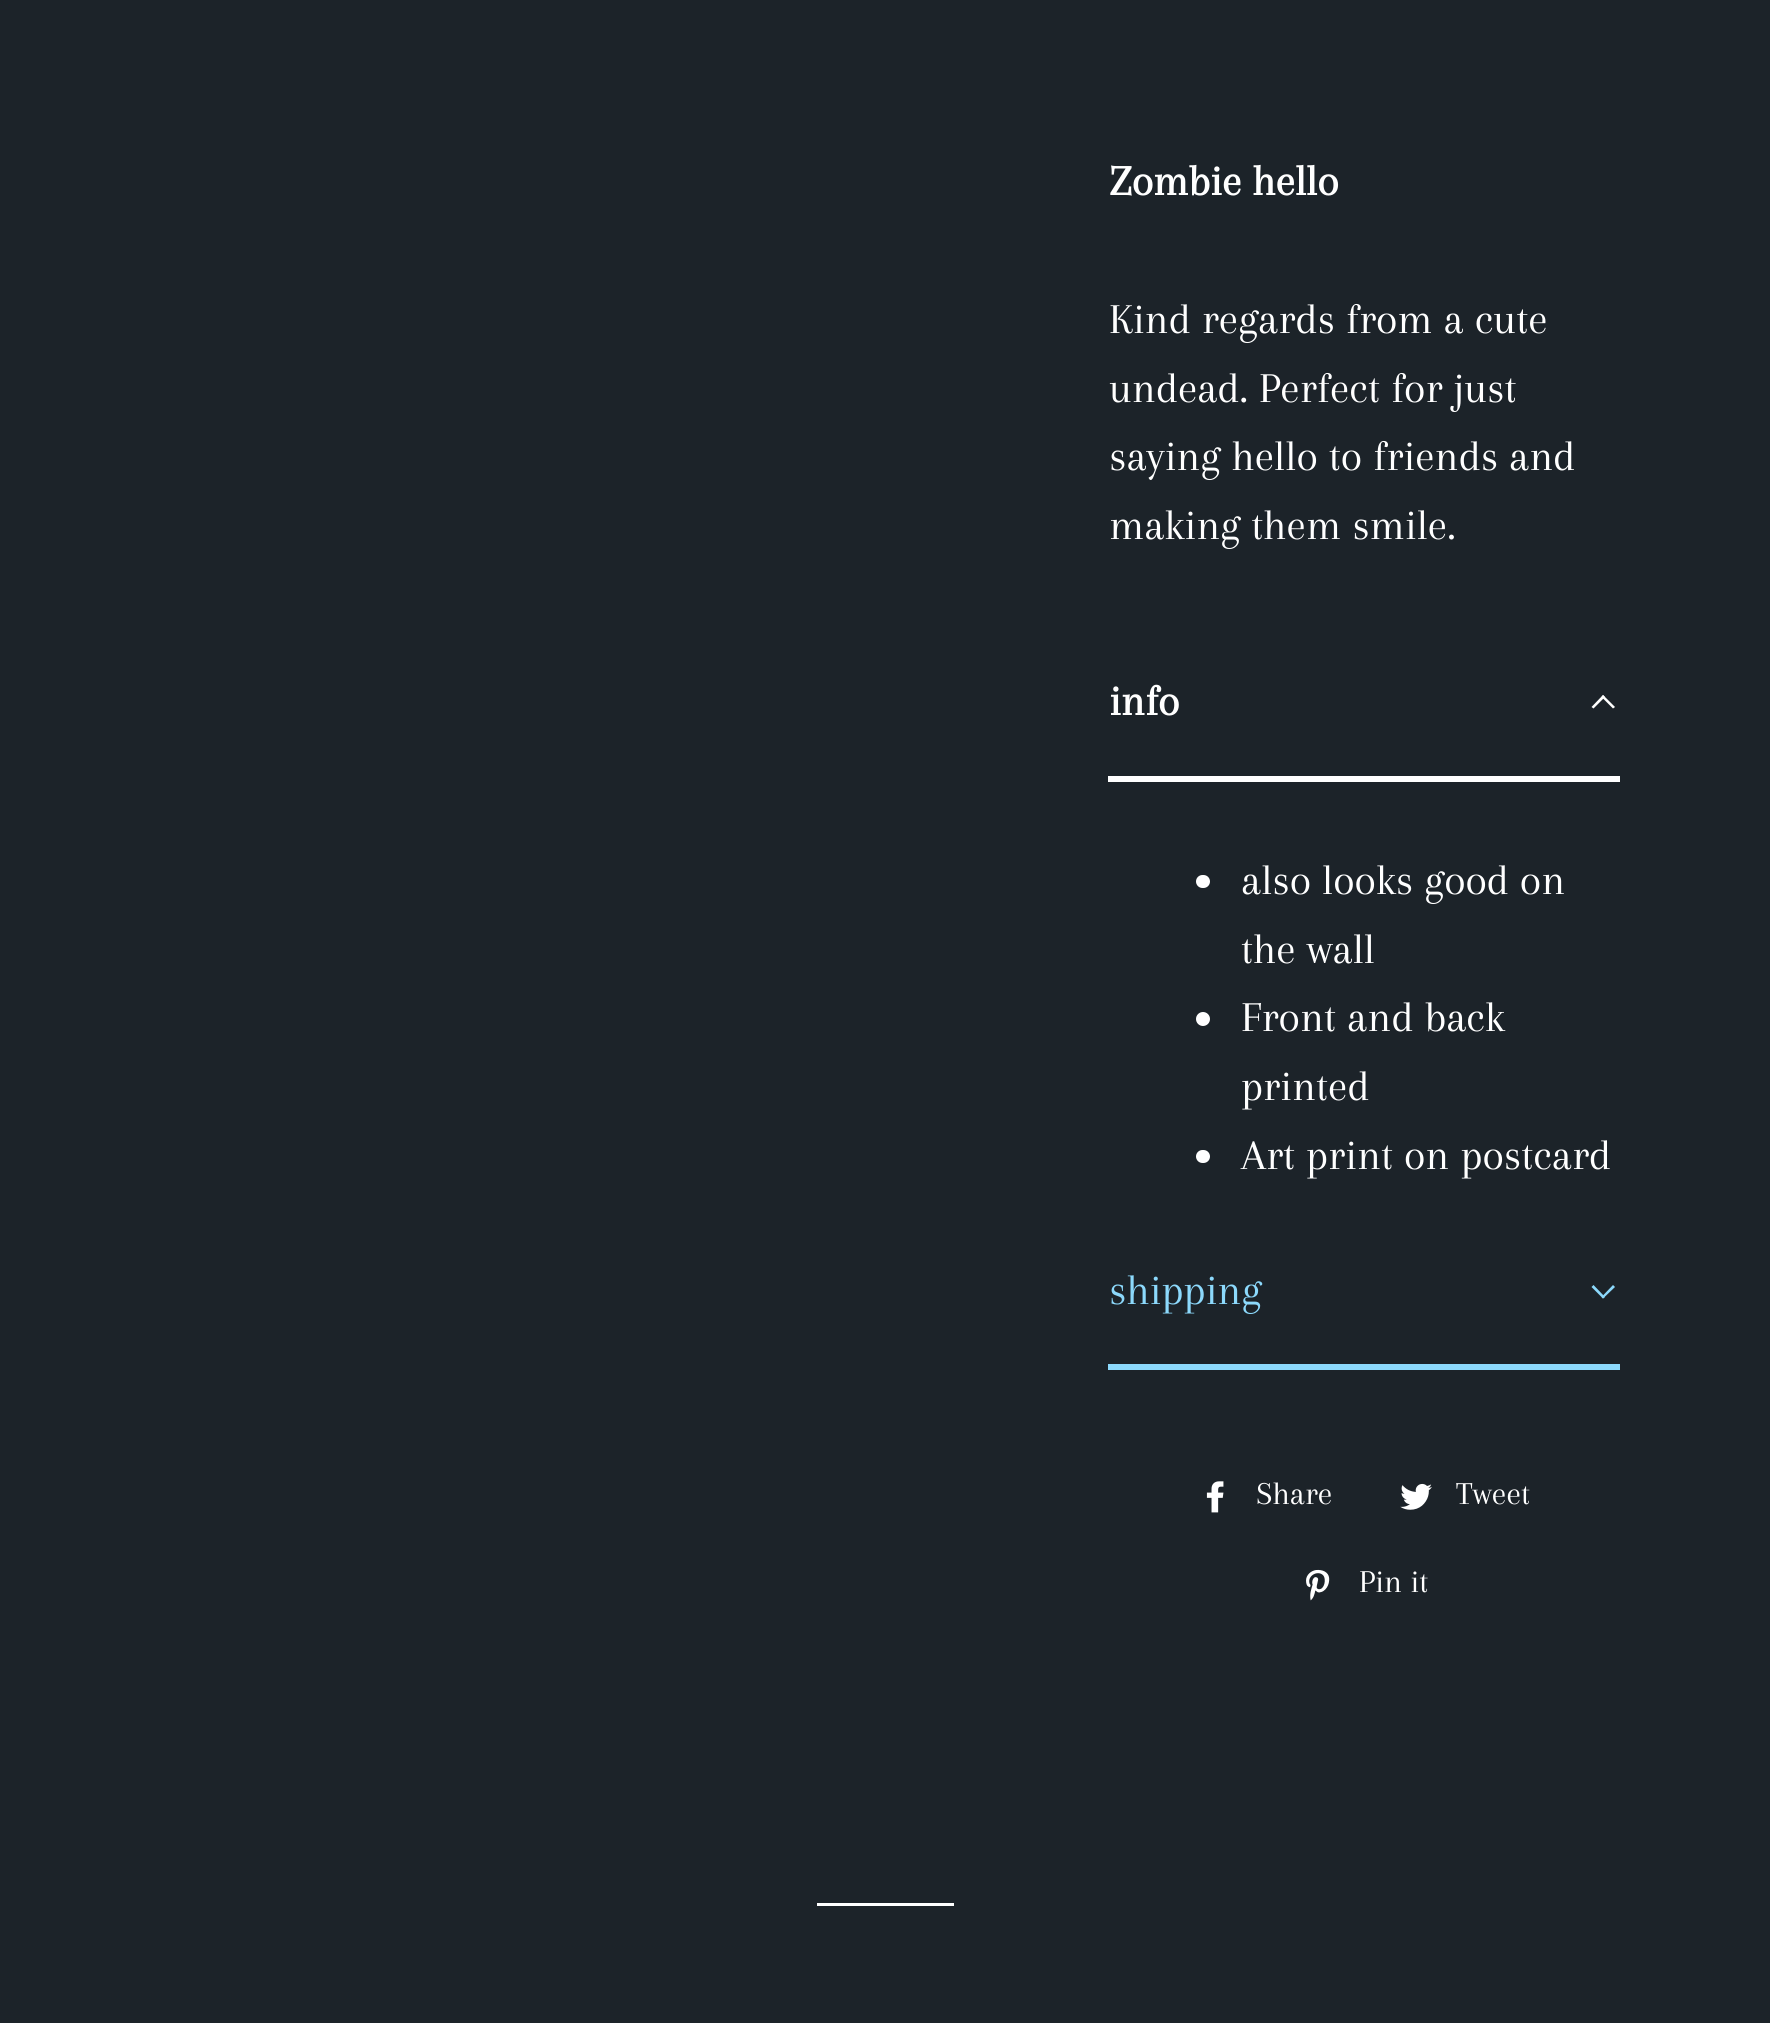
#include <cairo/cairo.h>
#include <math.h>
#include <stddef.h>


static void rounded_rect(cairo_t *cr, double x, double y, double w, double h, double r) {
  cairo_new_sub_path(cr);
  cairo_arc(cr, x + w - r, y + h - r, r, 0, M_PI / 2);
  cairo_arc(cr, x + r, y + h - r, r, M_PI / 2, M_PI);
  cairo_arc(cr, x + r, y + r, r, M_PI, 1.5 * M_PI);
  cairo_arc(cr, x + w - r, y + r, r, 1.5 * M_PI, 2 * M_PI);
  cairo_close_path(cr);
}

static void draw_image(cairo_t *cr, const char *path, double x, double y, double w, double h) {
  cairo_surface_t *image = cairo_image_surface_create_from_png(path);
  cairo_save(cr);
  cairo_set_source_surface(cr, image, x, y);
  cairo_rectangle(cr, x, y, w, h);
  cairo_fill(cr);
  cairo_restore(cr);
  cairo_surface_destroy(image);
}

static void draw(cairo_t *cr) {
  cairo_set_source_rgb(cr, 28 / 255.0, 35 / 255.0, 41 / 255.0);
  cairo_paint(cr);
  cairo_set_source_rgb(cr, 1, 1, 1);
  cairo_rectangle(cr, 1108, 776, 512, 6);
  cairo_fill(cr);
  cairo_new_path(cr);
  cairo_move_to(cr, 1593.5, 708.5);
  cairo_line_to(cr, 1591.5, 707);
  cairo_line_to(cr, 1603, 695);
  cairo_line_to(cr, 1605, 697);
  cairo_close_path(cr);
  cairo_fill(cr);
  cairo_new_path(cr);
  cairo_move_to(cr, 1613, 708.5);
  cairo_line_to(cr, 1601.5, 697);
  cairo_line_to(cr, 1603, 695);
  cairo_line_to(cr, 1615, 707);
  cairo_close_path(cr);
  cairo_fill(cr);
  rounded_rect(cr, 1196, 875, 14, 13, 6.5);
  cairo_fill(cr);
  cairo_arc(cr, 1203, 1019, 7, 0, 2 * M_PI);
  cairo_fill(cr);
  rounded_rect(cr, 1196, 1150, 14, 13, 6.5);
  cairo_fill(cr);
  cairo_set_source_rgb(cr, 140 / 255.0, 217 / 255.0, 252 / 255.0);
  cairo_rectangle(cr, 1108, 1364, 512, 6);
  cairo_fill(cr);
  cairo_new_path(cr);
  cairo_move_to(cr, 1613, 1285);
  cairo_line_to(cr, 1615, 1287);
  cairo_line_to(cr, 1603, 1298.5);
  cairo_line_to(cr, 1601.5, 1297);
  cairo_close_path(cr);
  cairo_fill(cr);
  cairo_new_path(cr);
  cairo_move_to(cr, 1593.5, 1285);
  cairo_line_to(cr, 1605, 1297);
  cairo_line_to(cr, 1603, 1298.5);
  cairo_line_to(cr, 1591.5, 1287);
  cairo_close_path(cr);
  cairo_fill(cr);
  draw_image(cr, "images/1.png", 1206, 1481, 18, 32);
  draw_image(cr, "images/2.png", 1400, 1483, 32, 27);
  draw_image(cr, "images/3.png", 1306, 1569, 24, 32);
  cairo_set_source_rgb(cr, 1, 1, 1);
  cairo_rectangle(cr, 817, 1903, 137, 3);
  cairo_fill(cr);
  cairo_select_font_face(cr, "Arapey", CAIRO_FONT_SLANT_NORMAL, CAIRO_FONT_WEIGHT_BOLD);
  cairo_set_font_size(cr, 44);
  cairo_move_to(cr, 1109, 195);
  cairo_show_text(cr, "Zombie hello");
  cairo_select_font_face(cr, "Arapey", CAIRO_FONT_SLANT_NORMAL, CAIRO_FONT_WEIGHT_NORMAL);
  cairo_move_to(cr, 1109, 333);
  cairo_show_text(cr, "Kind regards from a cute");
  cairo_move_to(cr, 1109, 402);
  cairo_show_text(cr, "undead. Perfect for just");
  cairo_move_to(cr, 1109, 470);
  cairo_show_text(cr, "saying hello to friends and");
  cairo_move_to(cr, 1109, 539);
  cairo_show_text(cr, "making them smile.");
  cairo_select_font_face(cr, "Arapey", CAIRO_FONT_SLANT_NORMAL, CAIRO_FONT_WEIGHT_BOLD);
  cairo_move_to(cr, 1109, 715);
  cairo_show_text(cr, "info");
  cairo_select_font_face(cr, "Arapey", CAIRO_FONT_SLANT_NORMAL, CAIRO_FONT_WEIGHT_NORMAL);
  cairo_move_to(cr, 1241, 894);
  cairo_show_text(cr, "also looks good on");
  cairo_move_to(cr, 1241, 963);
  cairo_show_text(cr, "the wall");
  cairo_move_to(cr, 1241, 1031);
  cairo_show_text(cr, "Front and back");
  cairo_move_to(cr, 1241, 1100);
  cairo_show_text(cr, "printed");
  cairo_move_to(cr, 1241, 1169);
  cairo_show_text(cr, "Art print on postcard");
  cairo_set_source_rgb(cr, 140 / 255.0, 217 / 255.0, 252 / 255.0);
  cairo_move_to(cr, 1109, 1304);
  cairo_show_text(cr, "shipping");
  cairo_set_font_size(cr, 33);
  cairo_set_source_rgb(cr, 1, 1, 1);
  cairo_move_to(cr, 1256, 1504);
  cairo_show_text(cr, "Share");
  cairo_move_to(cr, 1456, 1504);
  cairo_show_text(cr, "Tweet");
  cairo_move_to(cr, 1359, 1592);
  cairo_show_text(cr, "Pin it");
}

int main(void) {
  cairo_surface_t *surface = cairo_image_surface_create(CAIRO_FORMAT_RGB24, 1770, 2023);
  cairo_t *cr = cairo_create(surface);
  cairo_font_options_t *options = cairo_font_options_create();
  cairo_font_options_set_hint_metrics(options, CAIRO_HINT_METRICS_OFF);
  cairo_font_options_set_hint_style(options, CAIRO_HINT_STYLE_NONE);
  cairo_set_font_options(cr, options);
  cairo_set_miter_limit(cr, 4);
  draw(cr);
  cairo_surface_write_to_png(surface, "out.png");
  cairo_font_options_destroy(options);
  cairo_destroy(cr);
  cairo_surface_destroy(surface);
  return 0;
}
